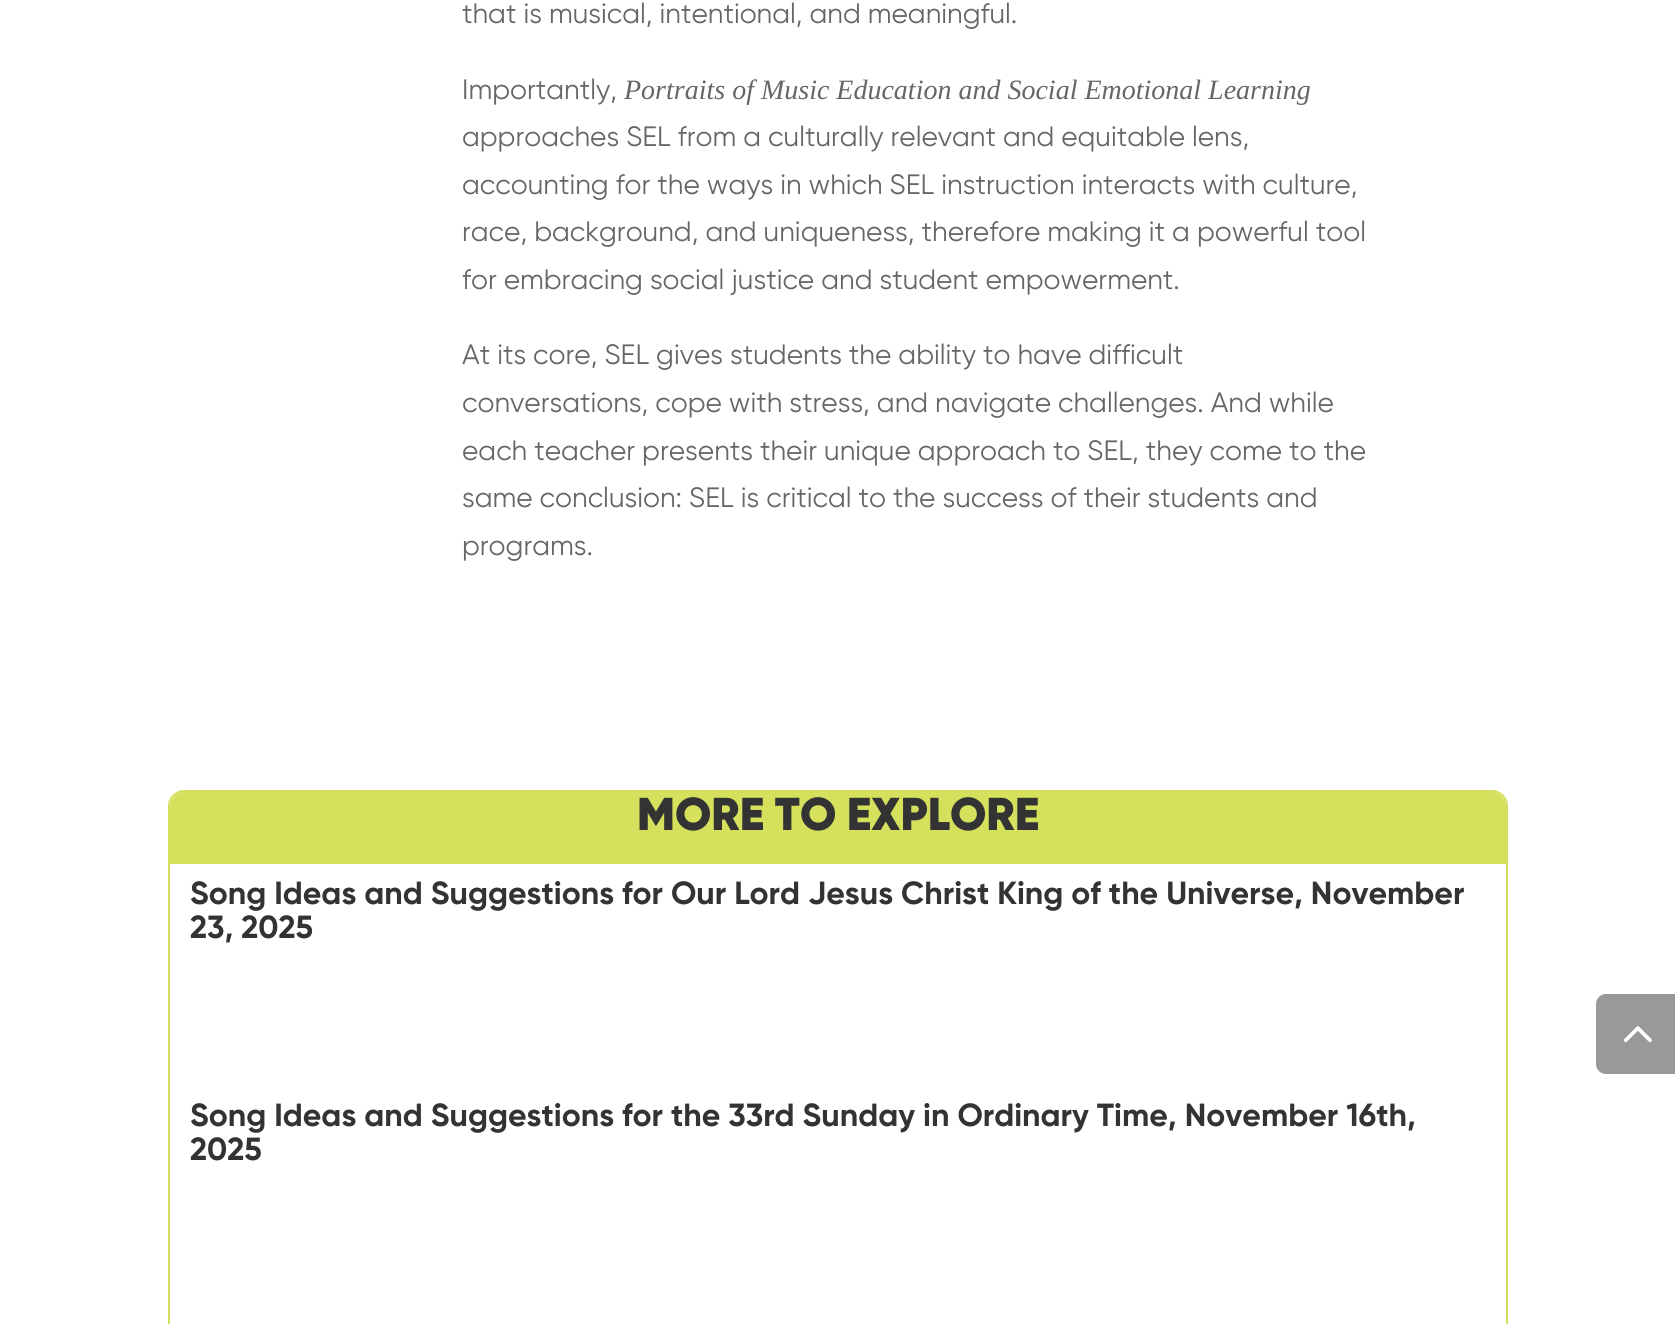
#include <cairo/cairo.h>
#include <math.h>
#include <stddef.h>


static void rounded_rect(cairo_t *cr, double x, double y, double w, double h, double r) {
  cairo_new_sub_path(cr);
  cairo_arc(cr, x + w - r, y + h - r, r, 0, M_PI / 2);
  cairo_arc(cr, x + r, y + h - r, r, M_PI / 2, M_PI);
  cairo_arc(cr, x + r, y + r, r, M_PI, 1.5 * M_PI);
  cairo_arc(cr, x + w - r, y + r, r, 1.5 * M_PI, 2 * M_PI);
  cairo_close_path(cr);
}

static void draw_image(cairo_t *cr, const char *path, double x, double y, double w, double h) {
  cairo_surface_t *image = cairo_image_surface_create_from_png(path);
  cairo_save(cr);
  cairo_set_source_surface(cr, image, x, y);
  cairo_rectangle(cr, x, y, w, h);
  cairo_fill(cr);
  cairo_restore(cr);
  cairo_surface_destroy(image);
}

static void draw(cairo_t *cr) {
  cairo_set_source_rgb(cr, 1, 1, 1);
  cairo_paint(cr);
  rounded_rect(cr, 169, 791, 1338, 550, 15);
  cairo_set_source_rgb(cr, 213 / 255.0, 225 / 255.0, 92 / 255.0);
  cairo_stroke(cr);
  cairo_new_path(cr);
  cairo_move_to(cr, 184, 792);
  cairo_line_to(cr, 1492, 792);
  cairo_curve_to(cr, 1499.5, 792, 1506, 798.5, 1506, 806);
  cairo_line_to(cr, 1506, 864);
  cairo_line_to(cr, 170, 864);
  cairo_line_to(cr, 170, 806);
  cairo_curve_to(cr, 170, 798.5, 176.5, 792, 184, 792);
  cairo_close_path(cr);
  cairo_fill(cr);
  cairo_set_source_rgb(cr, 153 / 255.0, 153 / 255.0, 153 / 255.0);
  cairo_new_path(cr);
  cairo_move_to(cr, 1606, 994);
  cairo_line_to(cr, 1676, 994);
  cairo_line_to(cr, 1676, 1074);
  cairo_line_to(cr, 1606, 1074);
  cairo_curve_to(cr, 1600.5, 1074, 1596, 1069.5, 1596, 1064);
  cairo_line_to(cr, 1596, 1004);
  cairo_curve_to(cr, 1596, 998.5, 1600.5, 994, 1606, 994);
  cairo_close_path(cr);
  cairo_fill(cr);
  draw_image(cr, "images/1.png", 1623, 1026, 29, 17);
  cairo_select_font_face(cr, "Gilroy", CAIRO_FONT_SLANT_NORMAL, CAIRO_FONT_WEIGHT_NORMAL);
  cairo_set_font_size(cr, 28);
  cairo_set_source_rgb(cr, 102 / 255.0, 102 / 255.0, 102 / 255.0);
  cairo_move_to(cr, 462, 23);
  cairo_show_text(cr, "that is musical, intentional, and meaningful.");
  cairo_move_to(cr, 462, 99);
  cairo_show_text(cr, "Importantly,");
  cairo_select_font_face(cr, "Liberation Serif", CAIRO_FONT_SLANT_ITALIC, CAIRO_FONT_WEIGHT_NORMAL);
  cairo_move_to(cr, 624, 99);
  cairo_show_text(cr, "Portraits of Music Education and Social Emotional Learning");
  cairo_select_font_face(cr, "Gilroy", CAIRO_FONT_SLANT_NORMAL, CAIRO_FONT_WEIGHT_NORMAL);
  cairo_move_to(cr, 462, 146);
  cairo_show_text(cr, "approaches SEL from a culturally relevant and equitable lens,");
  cairo_move_to(cr, 462, 194);
  cairo_show_text(cr, "accounting for the ways in which SEL instruction interacts with culture,");
  cairo_move_to(cr, 462, 241);
  cairo_show_text(cr, "race, background, and uniqueness, therefore making it a powerful tool");
  cairo_move_to(cr, 462, 289);
  cairo_show_text(cr, "for embracing social justice and student empowerment.");
  cairo_move_to(cr, 462, 364);
  cairo_show_text(cr, "At its core, SEL gives students the ability to have difficult");
  cairo_move_to(cr, 462, 412);
  cairo_show_text(cr, "conversations, cope with stress, and navigate challenges. And while");
  cairo_move_to(cr, 462, 460);
  cairo_show_text(cr, "each teacher presents their unique approach to SEL, they come to the");
  cairo_move_to(cr, 462, 507);
  cairo_show_text(cr, "same conclusion: SEL is critical to the success of their students and");
  cairo_move_to(cr, 462, 555);
  cairo_show_text(cr, "programs.");
  cairo_select_font_face(cr, "Gilroy Black", CAIRO_FONT_SLANT_NORMAL, CAIRO_FONT_WEIGHT_NORMAL);
  cairo_set_font_size(cr, 46);
  cairo_set_source_rgb(cr, 51 / 255.0, 51 / 255.0, 51 / 255.0);
  cairo_move_to(cr, 637, 830);
  cairo_show_text(cr, "MORE TO EXPLORE");
  cairo_select_font_face(cr, "Gilroy", CAIRO_FONT_SLANT_NORMAL, CAIRO_FONT_WEIGHT_BOLD);
  cairo_set_font_size(cr, 32);
  cairo_move_to(cr, 190, 904);
  cairo_show_text(cr, "Song Ideas and Suggestions for Our Lord Jesus Christ King of the Universe, November");
  cairo_move_to(cr, 190, 938);
  cairo_show_text(cr, "23, 2025");
  cairo_move_to(cr, 190, 1126);
  cairo_show_text(cr, "Song Ideas and Suggestions for the 33rd Sunday in Ordinary Time, November 16th,");
  cairo_move_to(cr, 190, 1160);
  cairo_show_text(cr, "2025");
}

int main(void) {
  cairo_surface_t *surface = cairo_image_surface_create(CAIRO_FORMAT_RGB24, 1675, 1324);
  cairo_t *cr = cairo_create(surface);
  cairo_font_options_t *options = cairo_font_options_create();
  cairo_font_options_set_hint_metrics(options, CAIRO_HINT_METRICS_OFF);
  cairo_font_options_set_hint_style(options, CAIRO_HINT_STYLE_NONE);
  cairo_set_font_options(cr, options);
  cairo_set_miter_limit(cr, 4);
  draw(cr);
  cairo_surface_write_to_png(surface, "out.png");
  cairo_font_options_destroy(options);
  cairo_destroy(cr);
  cairo_surface_destroy(surface);
  return 0;
}
